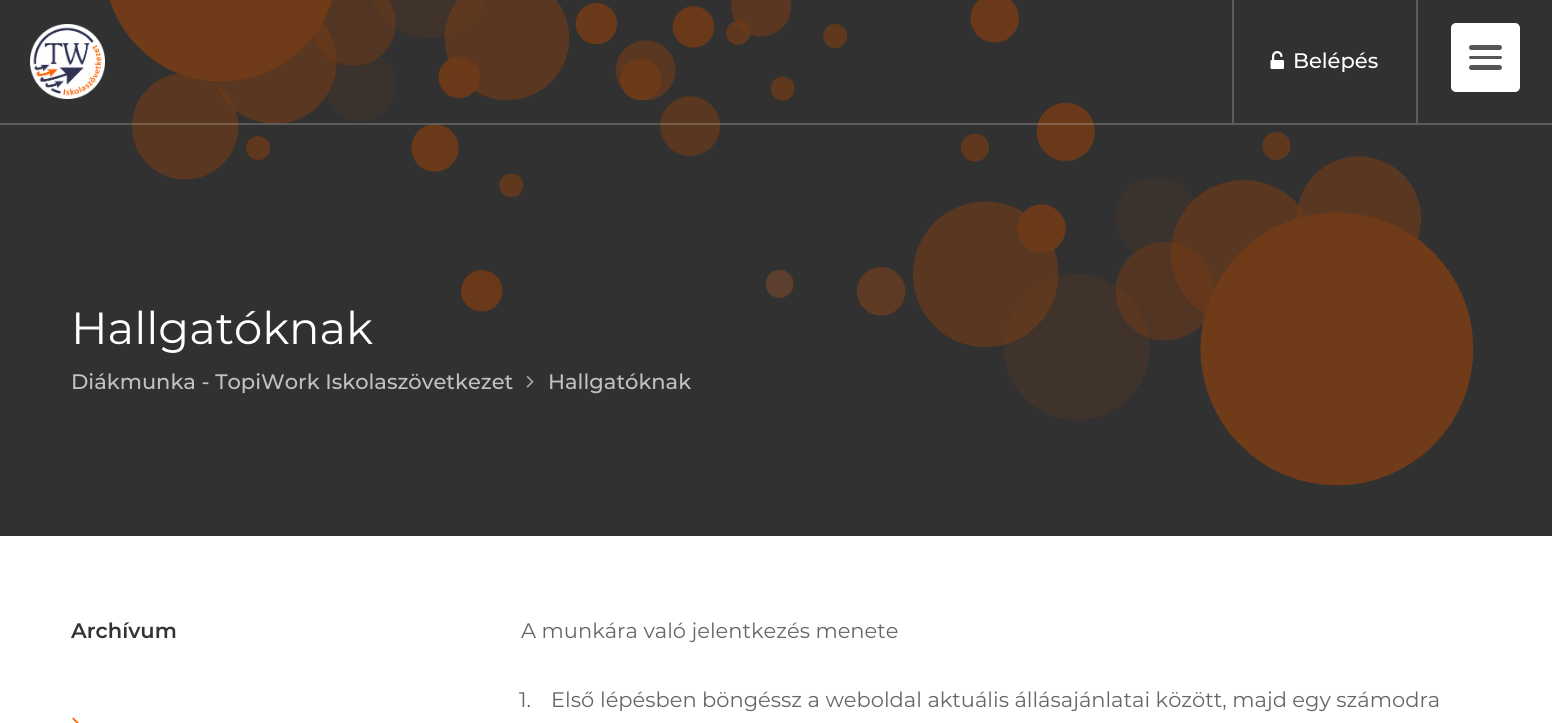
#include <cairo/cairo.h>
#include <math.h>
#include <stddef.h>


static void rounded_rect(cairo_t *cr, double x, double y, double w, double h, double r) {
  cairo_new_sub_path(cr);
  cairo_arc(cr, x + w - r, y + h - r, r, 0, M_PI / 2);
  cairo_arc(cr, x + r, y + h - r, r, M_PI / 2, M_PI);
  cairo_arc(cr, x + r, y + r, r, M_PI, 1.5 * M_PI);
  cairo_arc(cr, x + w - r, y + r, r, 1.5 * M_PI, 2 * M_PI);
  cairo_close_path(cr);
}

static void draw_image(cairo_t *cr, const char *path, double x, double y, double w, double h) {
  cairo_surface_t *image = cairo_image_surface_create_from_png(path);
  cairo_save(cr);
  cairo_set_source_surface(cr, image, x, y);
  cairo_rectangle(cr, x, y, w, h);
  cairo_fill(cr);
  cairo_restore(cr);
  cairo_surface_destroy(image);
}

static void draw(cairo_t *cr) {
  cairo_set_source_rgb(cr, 1, 1, 1);
  cairo_paint(cr);
  draw_image(cr, "images/3.png", 0, 0, 1552, 536);
  cairo_set_source_rgba(cr, 1, 1, 1, 0.2);
  cairo_rectangle(cr, 0, 123, 1552, 2);
  cairo_fill(cr);
  draw_image(cr, "images/1.png", 30, 24, 75, 75);
  cairo_set_source_rgb(cr, 90 / 255.0, 90 / 255.0, 90 / 255.0);
  cairo_rectangle(cr, 1416, 0, 2, 123);
  cairo_fill(cr);
  cairo_rectangle(cr, 1232, 0, 2, 123);
  cairo_fill(cr);
  draw_image(cr, "images/2.png", 1270, 51, 14, 18);
  cairo_set_source_rgb(cr, 1, 1, 1);
  rounded_rect(cr, 1451, 23, 69, 69, 5);
  cairo_fill(cr);
  cairo_set_source_rgb(cr, 85 / 255.0, 85 / 255.0, 85 / 255.0);
  rounded_rect(cr, 1469, 65, 33, 5, 2.5);
  cairo_fill(cr);
  rounded_rect(cr, 1469, 45, 33, 5, 2.5);
  cairo_fill(cr);
  rounded_rect(cr, 1469, 56, 33, 3, 1.5);
  cairo_fill(cr);
  draw_image(cr, "images/4.png", 526, 376, 8, 12);
  draw_image(cr, "images/5.png", 72, 717, 7, 6);
  cairo_select_font_face(cr, "Montserrat Medium", CAIRO_FONT_SLANT_NORMAL, CAIRO_FONT_WEIGHT_NORMAL);
  cairo_set_font_size(cr, 21);
  cairo_set_source_rgb(cr, 1, 1, 1);
  cairo_move_to(cr, 1293, 68);
  cairo_show_text(cr, "Belépés");
  cairo_select_font_face(cr, "Montserrat", CAIRO_FONT_SLANT_NORMAL, CAIRO_FONT_WEIGHT_NORMAL);
  cairo_set_font_size(cr, 45);
  cairo_move_to(cr, 71, 344);
  cairo_show_text(cr, "Hallgatóknak");
  cairo_select_font_face(cr, "Montserrat Medium", CAIRO_FONT_SLANT_NORMAL, CAIRO_FONT_WEIGHT_NORMAL);
  cairo_set_font_size(cr, 21);
  cairo_set_source_rgb(cr, 193 / 255.0, 193 / 255.0, 193 / 255.0);
  cairo_move_to(cr, 71, 389);
  cairo_show_text(cr, "Diákmunka - TopiWork Iskolaszövetkezet");
  cairo_move_to(cr, 548, 389);
  cairo_show_text(cr, "Hallgatóknak");
  cairo_select_font_face(cr, "Montserrat SemiBold", CAIRO_FONT_SLANT_NORMAL, CAIRO_FONT_WEIGHT_NORMAL);
  cairo_set_source_rgb(cr, 51 / 255.0, 51 / 255.0, 51 / 255.0);
  cairo_move_to(cr, 71, 638);
  cairo_show_text(cr, "Archívum");
  cairo_select_font_face(cr, "Montserrat", CAIRO_FONT_SLANT_NORMAL, CAIRO_FONT_WEIGHT_NORMAL);
  cairo_set_source_rgb(cr, 102 / 255.0, 102 / 255.0, 102 / 255.0);
  cairo_move_to(cr, 521, 638);
  cairo_show_text(cr, "A munkára való jelentkezés menete");
  cairo_move_to(cr, 519, 707);
  cairo_show_text(cr, "1.");
  cairo_move_to(cr, 551, 707);
  cairo_show_text(cr, "Els");
  cairo_select_font_face(cr, "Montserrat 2", CAIRO_FONT_SLANT_NORMAL, CAIRO_FONT_WEIGHT_NORMAL);
  cairo_move_to(cr, 581, 707);
  cairo_show_text(cr, "ő");
  cairo_select_font_face(cr, "Montserrat", CAIRO_FONT_SLANT_NORMAL, CAIRO_FONT_WEIGHT_NORMAL);
  cairo_move_to(cr, 600, 707);
  cairo_show_text(cr, "lépésben böngéssz a weboldal aktuális állásajánlatai között, majd egy számodra");
}

int main(void) {
  cairo_surface_t *surface = cairo_image_surface_create(CAIRO_FORMAT_RGB24, 1552, 723);
  cairo_t *cr = cairo_create(surface);
  cairo_font_options_t *options = cairo_font_options_create();
  cairo_font_options_set_hint_metrics(options, CAIRO_HINT_METRICS_OFF);
  cairo_font_options_set_hint_style(options, CAIRO_HINT_STYLE_NONE);
  cairo_set_font_options(cr, options);
  cairo_set_miter_limit(cr, 4);
  draw(cr);
  cairo_surface_write_to_png(surface, "out.png");
  cairo_font_options_destroy(options);
  cairo_destroy(cr);
  cairo_surface_destroy(surface);
  return 0;
}
